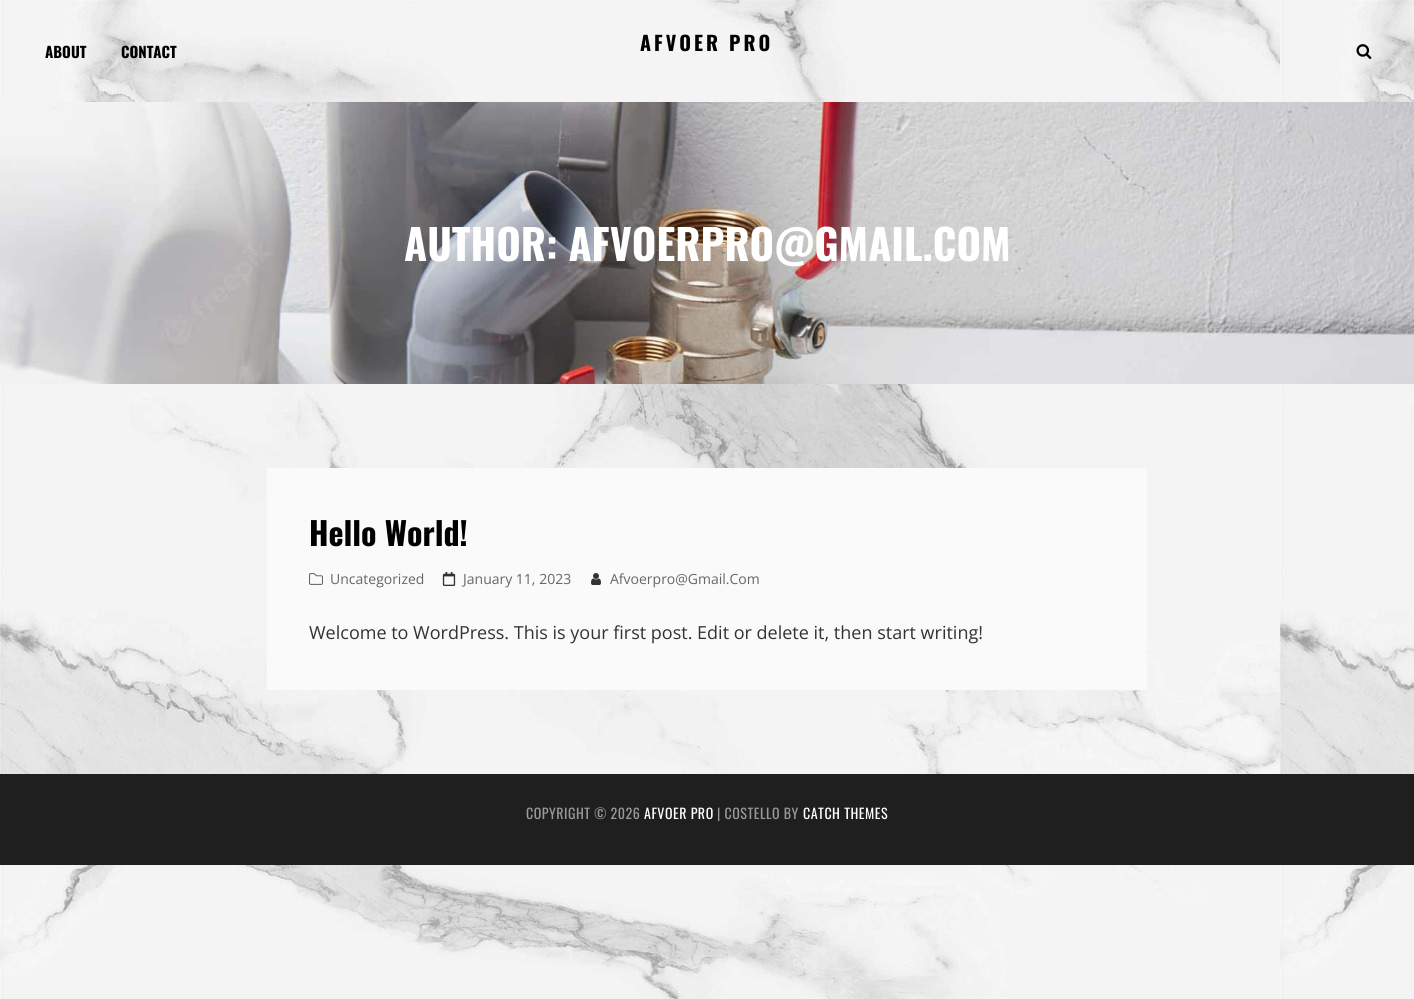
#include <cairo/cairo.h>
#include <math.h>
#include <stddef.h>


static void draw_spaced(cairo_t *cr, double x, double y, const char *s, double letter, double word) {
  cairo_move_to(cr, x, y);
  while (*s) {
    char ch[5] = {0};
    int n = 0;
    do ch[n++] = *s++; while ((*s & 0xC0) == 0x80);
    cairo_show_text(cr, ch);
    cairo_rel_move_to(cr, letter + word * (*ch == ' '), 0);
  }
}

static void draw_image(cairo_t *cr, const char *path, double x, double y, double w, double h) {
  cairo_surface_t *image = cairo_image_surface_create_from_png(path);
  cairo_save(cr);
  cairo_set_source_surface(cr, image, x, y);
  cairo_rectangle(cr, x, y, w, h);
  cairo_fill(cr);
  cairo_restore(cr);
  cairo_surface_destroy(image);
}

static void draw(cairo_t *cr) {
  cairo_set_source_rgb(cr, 1, 1, 1);
  cairo_paint(cr);
  draw_image(cr, "images/1.png", 0, 0, 1414, 999);
  draw_image(cr, "images/2.png", 1356, 44, 16, 15);
  draw_image(cr, "images/3.png", 0, 102, 1414, 282);
  cairo_set_source_rgb(cr, 250 / 255.0, 250 / 255.0, 250 / 255.0);
  cairo_rectangle(cr, 267, 468, 880, 222);
  cairo_fill(cr);
  draw_image(cr, "images/4.png", 309, 573, 14, 12);
  draw_image(cr, "images/5.png", 442, 572, 14, 14);
  draw_image(cr, "images/6.png", 591, 573, 10, 12);
  cairo_set_source_rgb(cr, 31 / 255.0, 31 / 255.0, 31 / 255.0);
  cairo_rectangle(cr, 0, 774, 1414, 91);
  cairo_fill(cr);
  cairo_select_font_face(cr, "Oswald", CAIRO_FONT_SLANT_NORMAL, CAIRO_FONT_WEIGHT_BOLD);
  cairo_set_font_size(cr, 15);
  cairo_set_source_rgb(cr, 0, 0, 0);
  cairo_move_to(cr, 45, 58);
  cairo_show_text(cr, "ABOUT");
  cairo_move_to(cr, 121, 58);
  cairo_show_text(cr, "CONTACT");
  cairo_set_font_size(cr, 20);
  draw_spaced(cr, 640, 51, "AFVOER PRO", 3, 0);
  cairo_set_font_size(cr, 42);
  cairo_set_source_rgb(cr, 1, 1, 1);
  cairo_move_to(cr, 404, 261);
  cairo_show_text(cr, "AUTHOR: AFVOERPRO@GMAIL.COM");
  cairo_set_font_size(cr, 32);
  cairo_set_source_rgb(cr, 0, 0, 0);
  cairo_move_to(cr, 309, 546);
  cairo_show_text(cr, "Hello World!");
  cairo_select_font_face(cr, "Open Sans", CAIRO_FONT_SLANT_NORMAL, CAIRO_FONT_WEIGHT_NORMAL);
  cairo_set_font_size(cr, 14);
  cairo_set_source_rgb(cr, 102 / 255.0, 102 / 255.0, 102 / 255.0);
  cairo_move_to(cr, 330, 584);
  cairo_show_text(cr, "Uncategorized");
  cairo_move_to(cr, 463, 584);
  cairo_show_text(cr, "January 11, 2023");
  cairo_move_to(cr, 610, 584);
  cairo_show_text(cr, "Afvoerpro@Gmail.Com");
  cairo_set_font_size(cr, 18);
  cairo_set_source_rgb(cr, 51 / 255.0, 51 / 255.0, 51 / 255.0);
  cairo_move_to(cr, 309, 639);
  cairo_show_text(cr, "Welcome to WordPress. This is your first post. Edit or delete it, then start writing!");
  cairo_select_font_face(cr, "Oswald", CAIRO_FONT_SLANT_NORMAL, CAIRO_FONT_WEIGHT_NORMAL);
  cairo_set_font_size(cr, 14);
  cairo_set_source_rgb(cr, 153 / 255.0, 153 / 255.0, 153 / 255.0);
  draw_spaced(cr, 526, 819, "COPYRIGHT © 2026", 0.5, 0);
  cairo_set_source_rgb(cr, 1, 1, 1);
  draw_spaced(cr, 644, 819, "AFVOER PRO", 0.5, 0);
  cairo_set_source_rgb(cr, 153 / 255.0, 153 / 255.0, 153 / 255.0);
  draw_spaced(cr, 717, 819, "| COSTELLO BY", 0.5, 0);
  cairo_set_source_rgb(cr, 1, 1, 1);
  draw_spaced(cr, 803, 819, "CATCH THEMES", 0.5, 0);
}

int main(void) {
  cairo_surface_t *surface = cairo_image_surface_create(CAIRO_FORMAT_RGB24, 1414, 999);
  cairo_t *cr = cairo_create(surface);
  cairo_font_options_t *options = cairo_font_options_create();
  cairo_font_options_set_hint_metrics(options, CAIRO_HINT_METRICS_OFF);
  cairo_font_options_set_hint_style(options, CAIRO_HINT_STYLE_NONE);
  cairo_set_font_options(cr, options);
  cairo_set_miter_limit(cr, 4);
  draw(cr);
  cairo_surface_write_to_png(surface, "out.png");
  cairo_font_options_destroy(options);
  cairo_destroy(cr);
  cairo_surface_destroy(surface);
  return 0;
}
